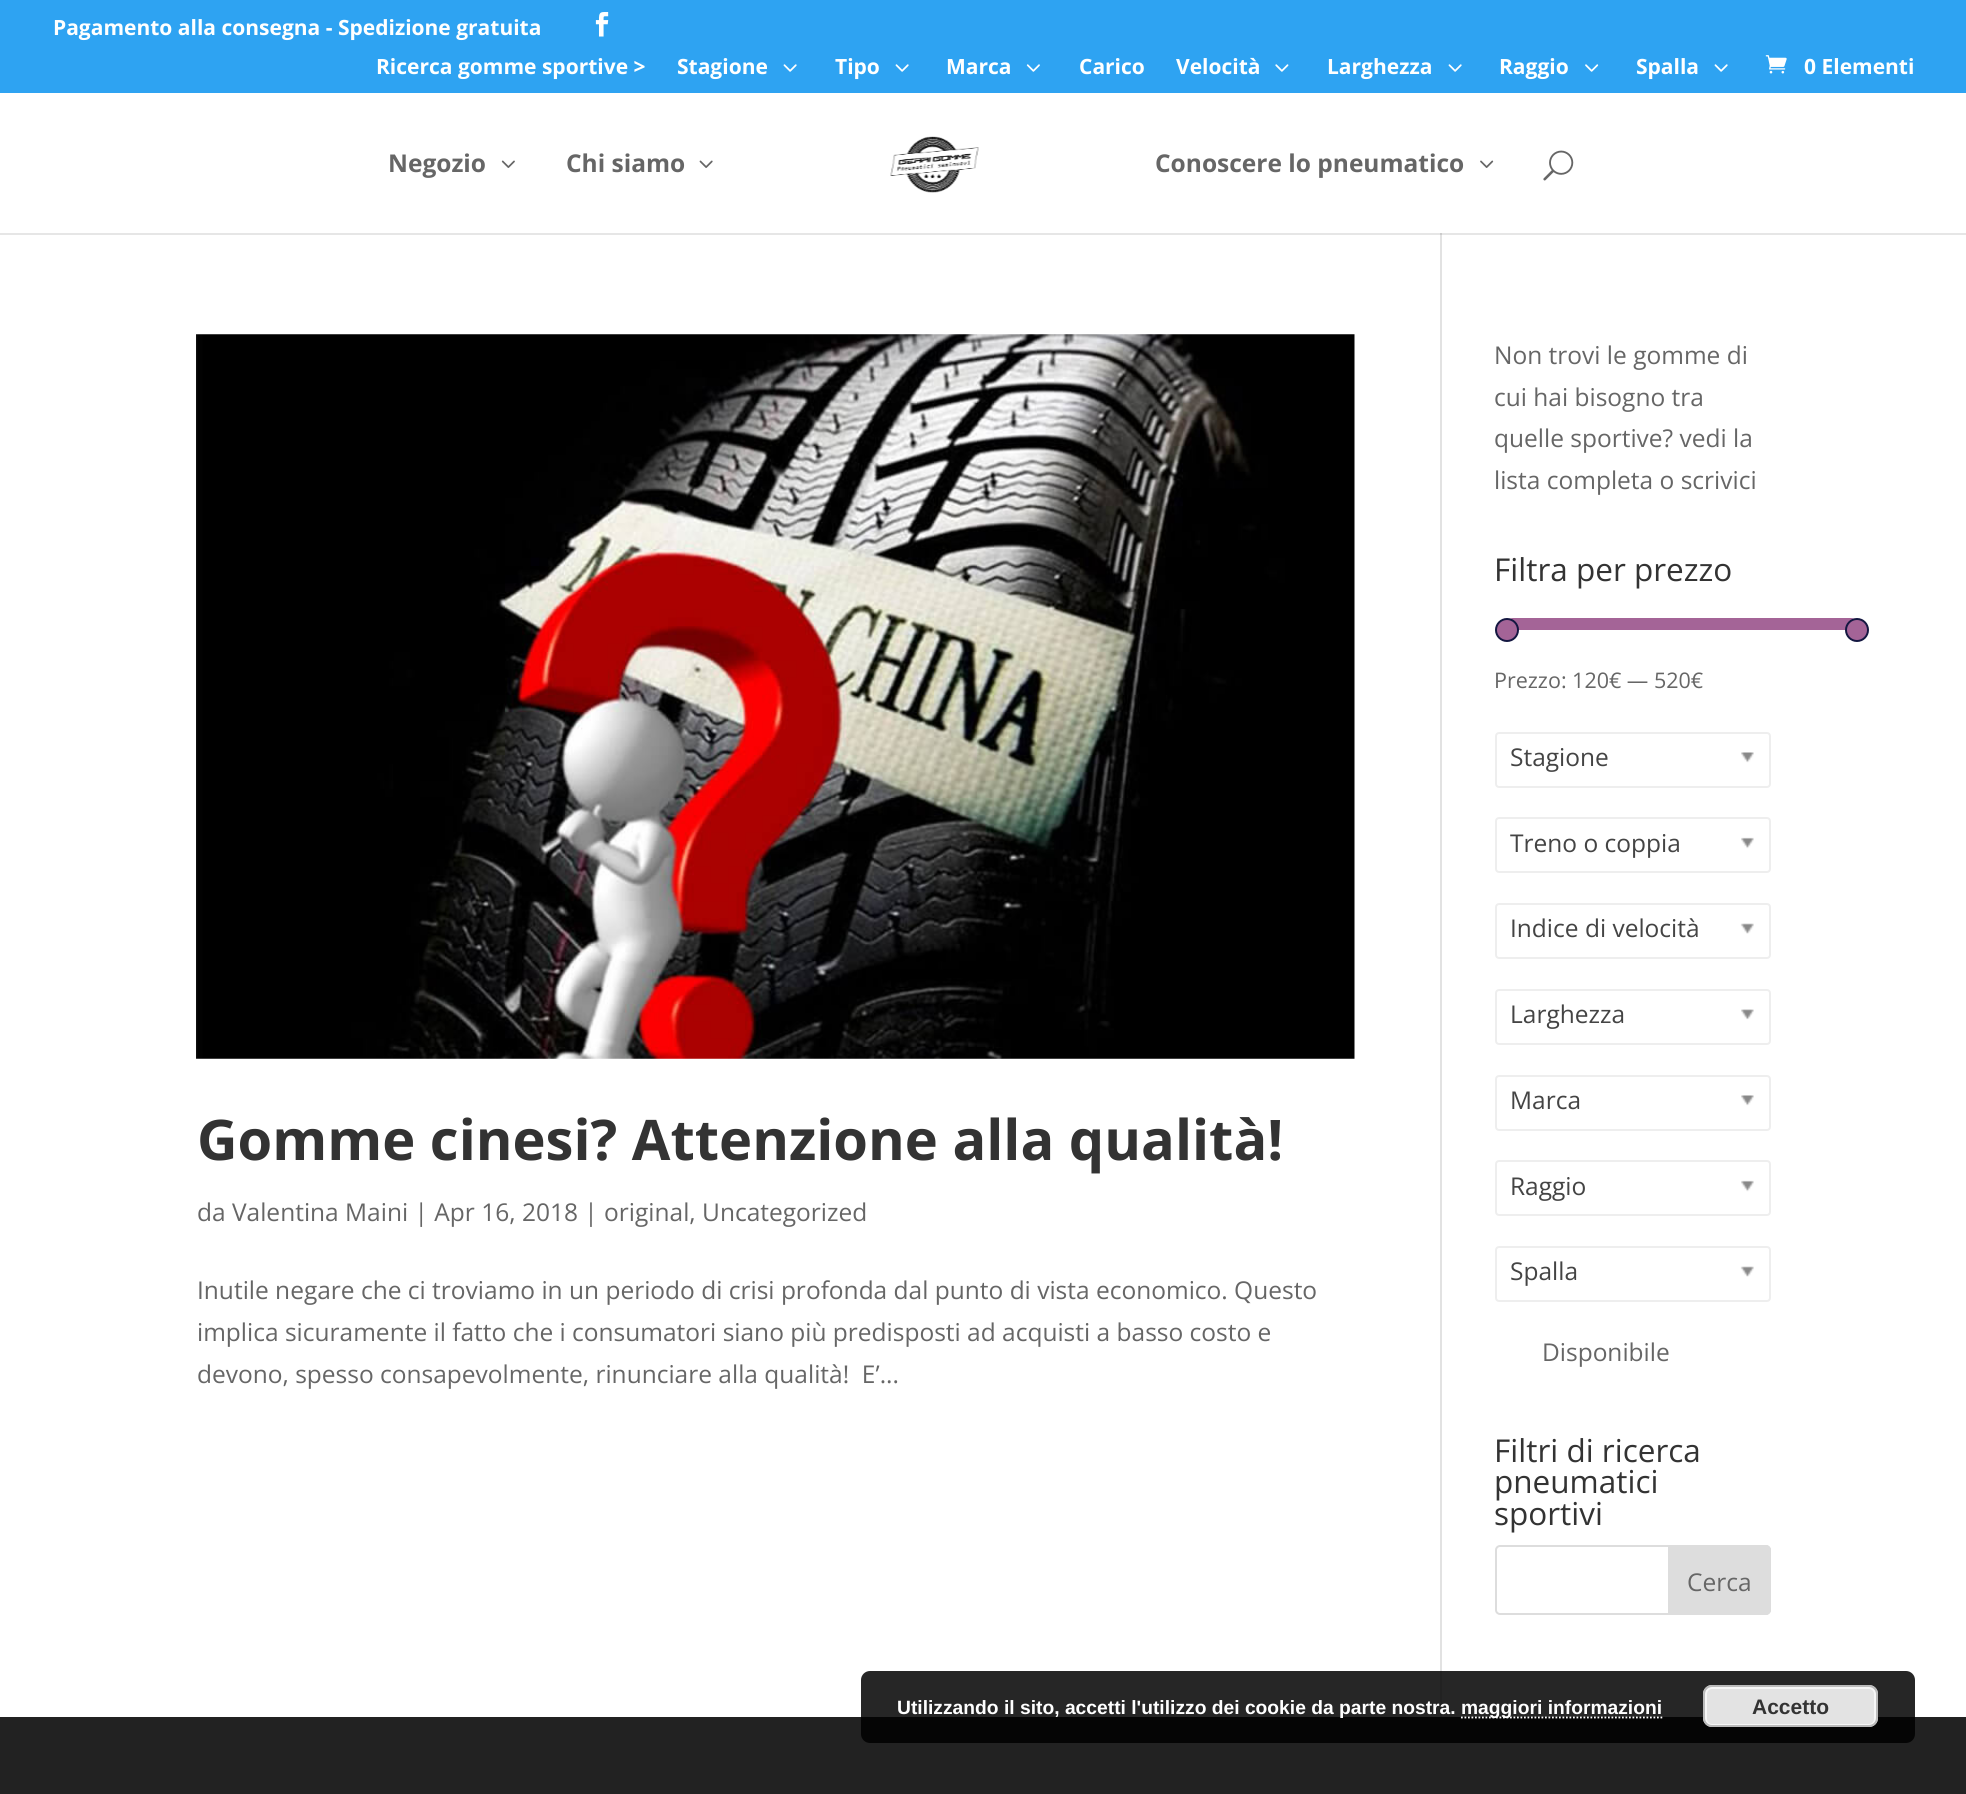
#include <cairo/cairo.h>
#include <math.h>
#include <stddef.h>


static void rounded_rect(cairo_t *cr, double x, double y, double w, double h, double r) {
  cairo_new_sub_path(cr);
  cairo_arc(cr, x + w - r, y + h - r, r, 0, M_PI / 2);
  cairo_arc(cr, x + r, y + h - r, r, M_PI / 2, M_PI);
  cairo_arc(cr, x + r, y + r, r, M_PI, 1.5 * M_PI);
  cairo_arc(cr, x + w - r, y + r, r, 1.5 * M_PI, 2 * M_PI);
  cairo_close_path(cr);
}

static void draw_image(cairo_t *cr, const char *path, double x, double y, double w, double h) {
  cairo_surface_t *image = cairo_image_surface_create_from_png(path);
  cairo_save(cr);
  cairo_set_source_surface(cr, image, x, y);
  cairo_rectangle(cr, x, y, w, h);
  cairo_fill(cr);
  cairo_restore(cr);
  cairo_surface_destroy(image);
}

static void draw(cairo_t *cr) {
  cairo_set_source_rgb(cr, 1, 1, 1);
  cairo_paint(cr);
  cairo_set_source_rgb(cr, 230 / 255.0, 230 / 255.0, 230 / 255.0);
  cairo_rectangle(cr, 0, 233, 1966, 2);
  cairo_fill(cr);
  cairo_set_source_rgb(cr, 46 / 255.0, 163 / 255.0, 242 / 255.0);
  cairo_rectangle(cr, 0, 0, 1966, 93);
  cairo_fill(cr);
  draw_image(cr, "images/1.png", 595, 12, 14, 25);
  draw_image(cr, "images/2.png", 783, 64, 14, 8);
  draw_image(cr, "images/2.png", 895, 64, 14, 8);
  draw_image(cr, "images/3.png", 1026, 64, 14, 8);
  draw_image(cr, "images/4.png", 1275, 64, 14, 8);
  draw_image(cr, "images/2.png", 1448, 64, 14, 8);
  draw_image(cr, "images/5.png", 1585, 64, 14, 8);
  draw_image(cr, "images/2.png", 1714, 64, 14, 8);
  draw_image(cr, "images/6.png", 1765, 55, 22, 19);
  draw_image(cr, "images/7.png", 501, 160, 14, 8);
  draw_image(cr, "images/8.png", 699, 160, 14, 8);
  draw_image(cr, "images/9.png", 890, 136, 89, 57);
  draw_image(cr, "images/10.png", 1480, 160, 14, 8);
  draw_image(cr, "images/11.png", 1543, 150, 31, 31);
  cairo_set_source_rgb(cr, 226 / 255.0, 226 / 255.0, 226 / 255.0);
  cairo_rectangle(cr, 1440, 233, 2, 1484);
  cairo_fill(cr);
  cairo_set_source_rgb(cr, 203 / 255.0, 203 / 255.0, 203 / 255.0);
  cairo_rectangle(cr, 1440, 233, 2, 2);
  cairo_fill(cr);
  draw_image(cr, "images/12.png", 196, 334, 1159, 725);
  cairo_set_source_rgb(cr, 164 / 255.0, 100 / 255.0, 151 / 255.0);
  rounded_rect(cr, 1507, 618, 350, 12, 6);
  cairo_fill(cr);
  cairo_arc(cr, 1507, 630, 11, 0, 2 * M_PI);
  cairo_fill_preserve(cr);
  cairo_set_source_rgb(cr, 20 / 255.0, 23 / 255.0, 65 / 255.0);
  cairo_stroke(cr);
  cairo_set_source_rgb(cr, 164 / 255.0, 100 / 255.0, 151 / 255.0);
  cairo_arc(cr, 1857, 630, 11, 0, 2 * M_PI);
  cairo_fill_preserve(cr);
  cairo_set_source_rgb(cr, 20 / 255.0, 23 / 255.0, 65 / 255.0);
  cairo_stroke(cr);
  rounded_rect(cr, 1496, 733, 274, 54, 3);
  cairo_set_source_rgb(cr, 238 / 255.0, 238 / 255.0, 238 / 255.0);
  cairo_stroke(cr);
  draw_image(cr, "images/13.png", 1741, 752, 13, 11);
  rounded_rect(cr, 1496, 818, 274, 54, 3);
  cairo_stroke(cr);
  draw_image(cr, "images/14.png", 1741, 837, 13, 12);
  rounded_rect(cr, 1496, 904, 274, 54, 3);
  cairo_stroke(cr);
  draw_image(cr, "images/15.png", 1740, 923, 14, 11);
  rounded_rect(cr, 1496, 990, 274, 54, 3);
  cairo_stroke(cr);
  draw_image(cr, "images/16.png", 1741, 1009, 13, 11);
  rounded_rect(cr, 1496, 1076, 274, 54, 3);
  cairo_stroke(cr);
  draw_image(cr, "images/13.png", 1741, 1095, 13, 11);
  rounded_rect(cr, 1496, 1161, 274, 54, 3);
  cairo_stroke(cr);
  draw_image(cr, "images/14.png", 1741, 1180, 13, 12);
  rounded_rect(cr, 1496, 1247, 274, 54, 3);
  cairo_stroke(cr);
  draw_image(cr, "images/15.png", 1740, 1266, 14, 11);
  rounded_rect(cr, 1496, 1546, 274, 68, 4);
  cairo_set_source_rgb(cr, 221 / 255.0, 221 / 255.0, 221 / 255.0);
  cairo_stroke(cr);
  cairo_new_path(cr);
  cairo_move_to(cr, 1669, 1546);
  cairo_line_to(cr, 1766, 1546);
  cairo_curve_to(cr, 1768, 1546, 1770, 1548, 1770, 1550);
  cairo_line_to(cr, 1770, 1610);
  cairo_curve_to(cr, 1770, 1612, 1768, 1614, 1766, 1614);
  cairo_line_to(cr, 1669, 1614);
  cairo_close_path(cr);
  cairo_fill_preserve(cr);
  cairo_stroke(cr);
  cairo_set_source_rgb(cr, 34 / 255.0, 34 / 255.0, 34 / 255.0);
  cairo_rectangle(cr, 0, 1717, 1966, 77);
  cairo_fill(cr);
  cairo_set_source_rgba(cr, 0, 0, 0, 0.85);
  rounded_rect(cr, 861, 1671, 1054, 72, 9);
  cairo_fill(cr);
  cairo_new_path(cr);
  cairo_move_to(cr, 1461, 1717.5);
  cairo_line_to(cr, 1662.5, 1717.5);
  cairo_set_source_rgb(cr, 1, 1, 1);
  cairo_set_line_width(cr, 1.8);
  cairo_set_dash(cr, (double[]){1.75, 1.75}, 2, 0);
  cairo_stroke(cr);
  cairo_set_source_rgb(cr, 227 / 255.0, 227 / 255.0, 227 / 255.0);
  rounded_rect(cr, 1703, 1685, 175, 42, 9);
  cairo_fill(cr);
  rounded_rect(cr, 1706, 1688, 169, 37, 6);
  cairo_set_source_rgb(cr, 246 / 255.0, 246 / 255.0, 246 / 255.0);
  cairo_set_line_width(cr, 2);
  cairo_set_dash(cr, NULL, 0, 0);
  cairo_stroke(cr);
  rounded_rect(cr, 1704, 1686, 173, 40, 8);
  cairo_set_source_rgb(cr, 187 / 255.0, 187 / 255.0, 187 / 255.0);
  cairo_stroke(cr);
  cairo_select_font_face(cr, "Open Sans", CAIRO_FONT_SLANT_NORMAL, CAIRO_FONT_WEIGHT_BOLD);
  cairo_set_font_size(cr, 21);
  cairo_set_source_rgb(cr, 1, 1, 1);
  cairo_move_to(cr, 53, 35);
  cairo_show_text(cr, "Pagamento alla consegna - Spedizione gratuita");
  cairo_move_to(cr, 376, 74);
  cairo_show_text(cr, "Ricerca gomme sportive >");
  cairo_move_to(cr, 677, 74);
  cairo_show_text(cr, "Stagione");
  cairo_move_to(cr, 835, 74);
  cairo_show_text(cr, "Tipo");
  cairo_move_to(cr, 946, 74);
  cairo_show_text(cr, "Marca");
  cairo_move_to(cr, 1079, 74);
  cairo_show_text(cr, "Carico");
  cairo_move_to(cr, 1176, 74);
  cairo_show_text(cr, "Velocità");
  cairo_move_to(cr, 1327, 74);
  cairo_show_text(cr, "Larghezza");
  cairo_move_to(cr, 1499, 74);
  cairo_show_text(cr, "Raggio");
  cairo_move_to(cr, 1636, 74);
  cairo_show_text(cr, "Spalla");
  cairo_move_to(cr, 1804, 74);
  cairo_show_text(cr, "0 Elementi");
  cairo_set_font_size(cr, 24.5);
  cairo_set_source_rgb(cr, 102 / 255.0, 102 / 255.0, 102 / 255.0);
  cairo_move_to(cr, 388, 172);
  cairo_show_text(cr, "Negozio");
  cairo_move_to(cr, 566, 172);
  cairo_show_text(cr, "Chi siamo");
  cairo_move_to(cr, 1155, 172);
  cairo_show_text(cr, "Conoscere lo pneumatico");
  cairo_set_font_size(cr, 56);
  cairo_set_source_rgb(cr, 51 / 255.0, 51 / 255.0, 51 / 255.0);
  cairo_move_to(cr, 197, 1160);
  cairo_show_text(cr, "Gomme cinesi? Attenzione alla qualità!");
  cairo_select_font_face(cr, "Open Sans", CAIRO_FONT_SLANT_NORMAL, CAIRO_FONT_WEIGHT_NORMAL);
  cairo_set_font_size(cr, 24.5);
  cairo_set_source_rgb(cr, 102 / 255.0, 102 / 255.0, 102 / 255.0);
  cairo_move_to(cr, 197, 1221);
  cairo_show_text(cr, "da Valentina Maini | Apr 16, 2018 | original, Uncategorized");
  cairo_move_to(cr, 197, 1299);
  cairo_show_text(cr, "Inutile negare che ci troviamo in un periodo di crisi profonda dal punto di vista economico. Questo");
  cairo_move_to(cr, 197, 1341);
  cairo_show_text(cr, "implica sicuramente il fatto che i consumatori siano più predisposti ad acquisti a basso costo e");
  cairo_move_to(cr, 197, 1383);
  cairo_show_text(cr, "devono, spesso consapevolmente, rinunciare alla qualità!  E’...");
  cairo_move_to(cr, 1494, 364);
  cairo_show_text(cr, "Non trovi le gomme di");
  cairo_move_to(cr, 1494, 406);
  cairo_show_text(cr, "cui hai bisogno tra");
  cairo_move_to(cr, 1494, 447);
  cairo_show_text(cr, "quelle sportive? vedi la");
  cairo_move_to(cr, 1494, 489);
  cairo_show_text(cr, "lista completa o scrivici");
  cairo_set_font_size(cr, 31.5);
  cairo_set_source_rgb(cr, 51 / 255.0, 51 / 255.0, 51 / 255.0);
  cairo_move_to(cr, 1494, 581);
  cairo_show_text(cr, "Filtra per prezzo");
  cairo_set_font_size(cr, 21.5);
  cairo_set_source_rgb(cr, 102 / 255.0, 102 / 255.0, 102 / 255.0);
  cairo_move_to(cr, 1494, 688);
  cairo_show_text(cr, "Prezzo: 120€ — 520€");
  cairo_set_font_size(cr, 24.5);
  cairo_set_source_rgb(cr, 68 / 255.0, 68 / 255.0, 68 / 255.0);
  cairo_move_to(cr, 1510, 766);
  cairo_show_text(cr, "Stagione");
  cairo_move_to(cr, 1510, 852);
  cairo_show_text(cr, "Treno o coppia");
  cairo_move_to(cr, 1510, 937);
  cairo_show_text(cr, "Indice di velocità");
  cairo_move_to(cr, 1510, 1023);
  cairo_show_text(cr, "Larghezza");
  cairo_move_to(cr, 1510, 1109);
  cairo_show_text(cr, "Marca");
  cairo_move_to(cr, 1510, 1195);
  cairo_show_text(cr, "Raggio");
  cairo_move_to(cr, 1510, 1280);
  cairo_show_text(cr, "Spalla");
  cairo_set_source_rgb(cr, 102 / 255.0, 102 / 255.0, 102 / 255.0);
  cairo_move_to(cr, 1542, 1361);
  cairo_show_text(cr, "Disponibile");
  cairo_set_font_size(cr, 31.5);
  cairo_set_source_rgb(cr, 51 / 255.0, 51 / 255.0, 51 / 255.0);
  cairo_move_to(cr, 1494, 1462);
  cairo_show_text(cr, "Filtri di ricerca");
  cairo_move_to(cr, 1494, 1493);
  cairo_show_text(cr, "pneumatici");
  cairo_move_to(cr, 1494, 1525);
  cairo_show_text(cr, "sportivi");
  cairo_set_font_size(cr, 24.5);
  cairo_set_source_rgb(cr, 102 / 255.0, 102 / 255.0, 102 / 255.0);
  cairo_move_to(cr, 1687, 1591);
  cairo_show_text(cr, "Cerca");
  cairo_select_font_face(cr, "Liberation Sans", CAIRO_FONT_SLANT_NORMAL, CAIRO_FONT_WEIGHT_BOLD);
  cairo_set_font_size(cr, 19.25);
  cairo_set_source_rgb(cr, 1, 1, 1);
  cairo_move_to(cr, 897, 1714);
  cairo_show_text(cr, "Utilizzando il sito, accetti l'utilizzo dei cookie da parte nostra.");
  cairo_move_to(cr, 1461, 1714);
  cairo_show_text(cr, "maggiori informazioni");
  cairo_set_font_size(cr, 21);
  cairo_set_source_rgb(cr, 51 / 255.0, 51 / 255.0, 51 / 255.0);
  cairo_move_to(cr, 1752, 1714);
  cairo_show_text(cr, "Accetto");
}

int main(void) {
  cairo_surface_t *surface = cairo_image_surface_create(CAIRO_FORMAT_RGB24, 1966, 1794);
  cairo_t *cr = cairo_create(surface);
  cairo_font_options_t *options = cairo_font_options_create();
  cairo_font_options_set_hint_metrics(options, CAIRO_HINT_METRICS_OFF);
  cairo_font_options_set_hint_style(options, CAIRO_HINT_STYLE_NONE);
  cairo_set_font_options(cr, options);
  cairo_set_miter_limit(cr, 4);
  draw(cr);
  cairo_surface_write_to_png(surface, "out.png");
  cairo_font_options_destroy(options);
  cairo_destroy(cr);
  cairo_surface_destroy(surface);
  return 0;
}
